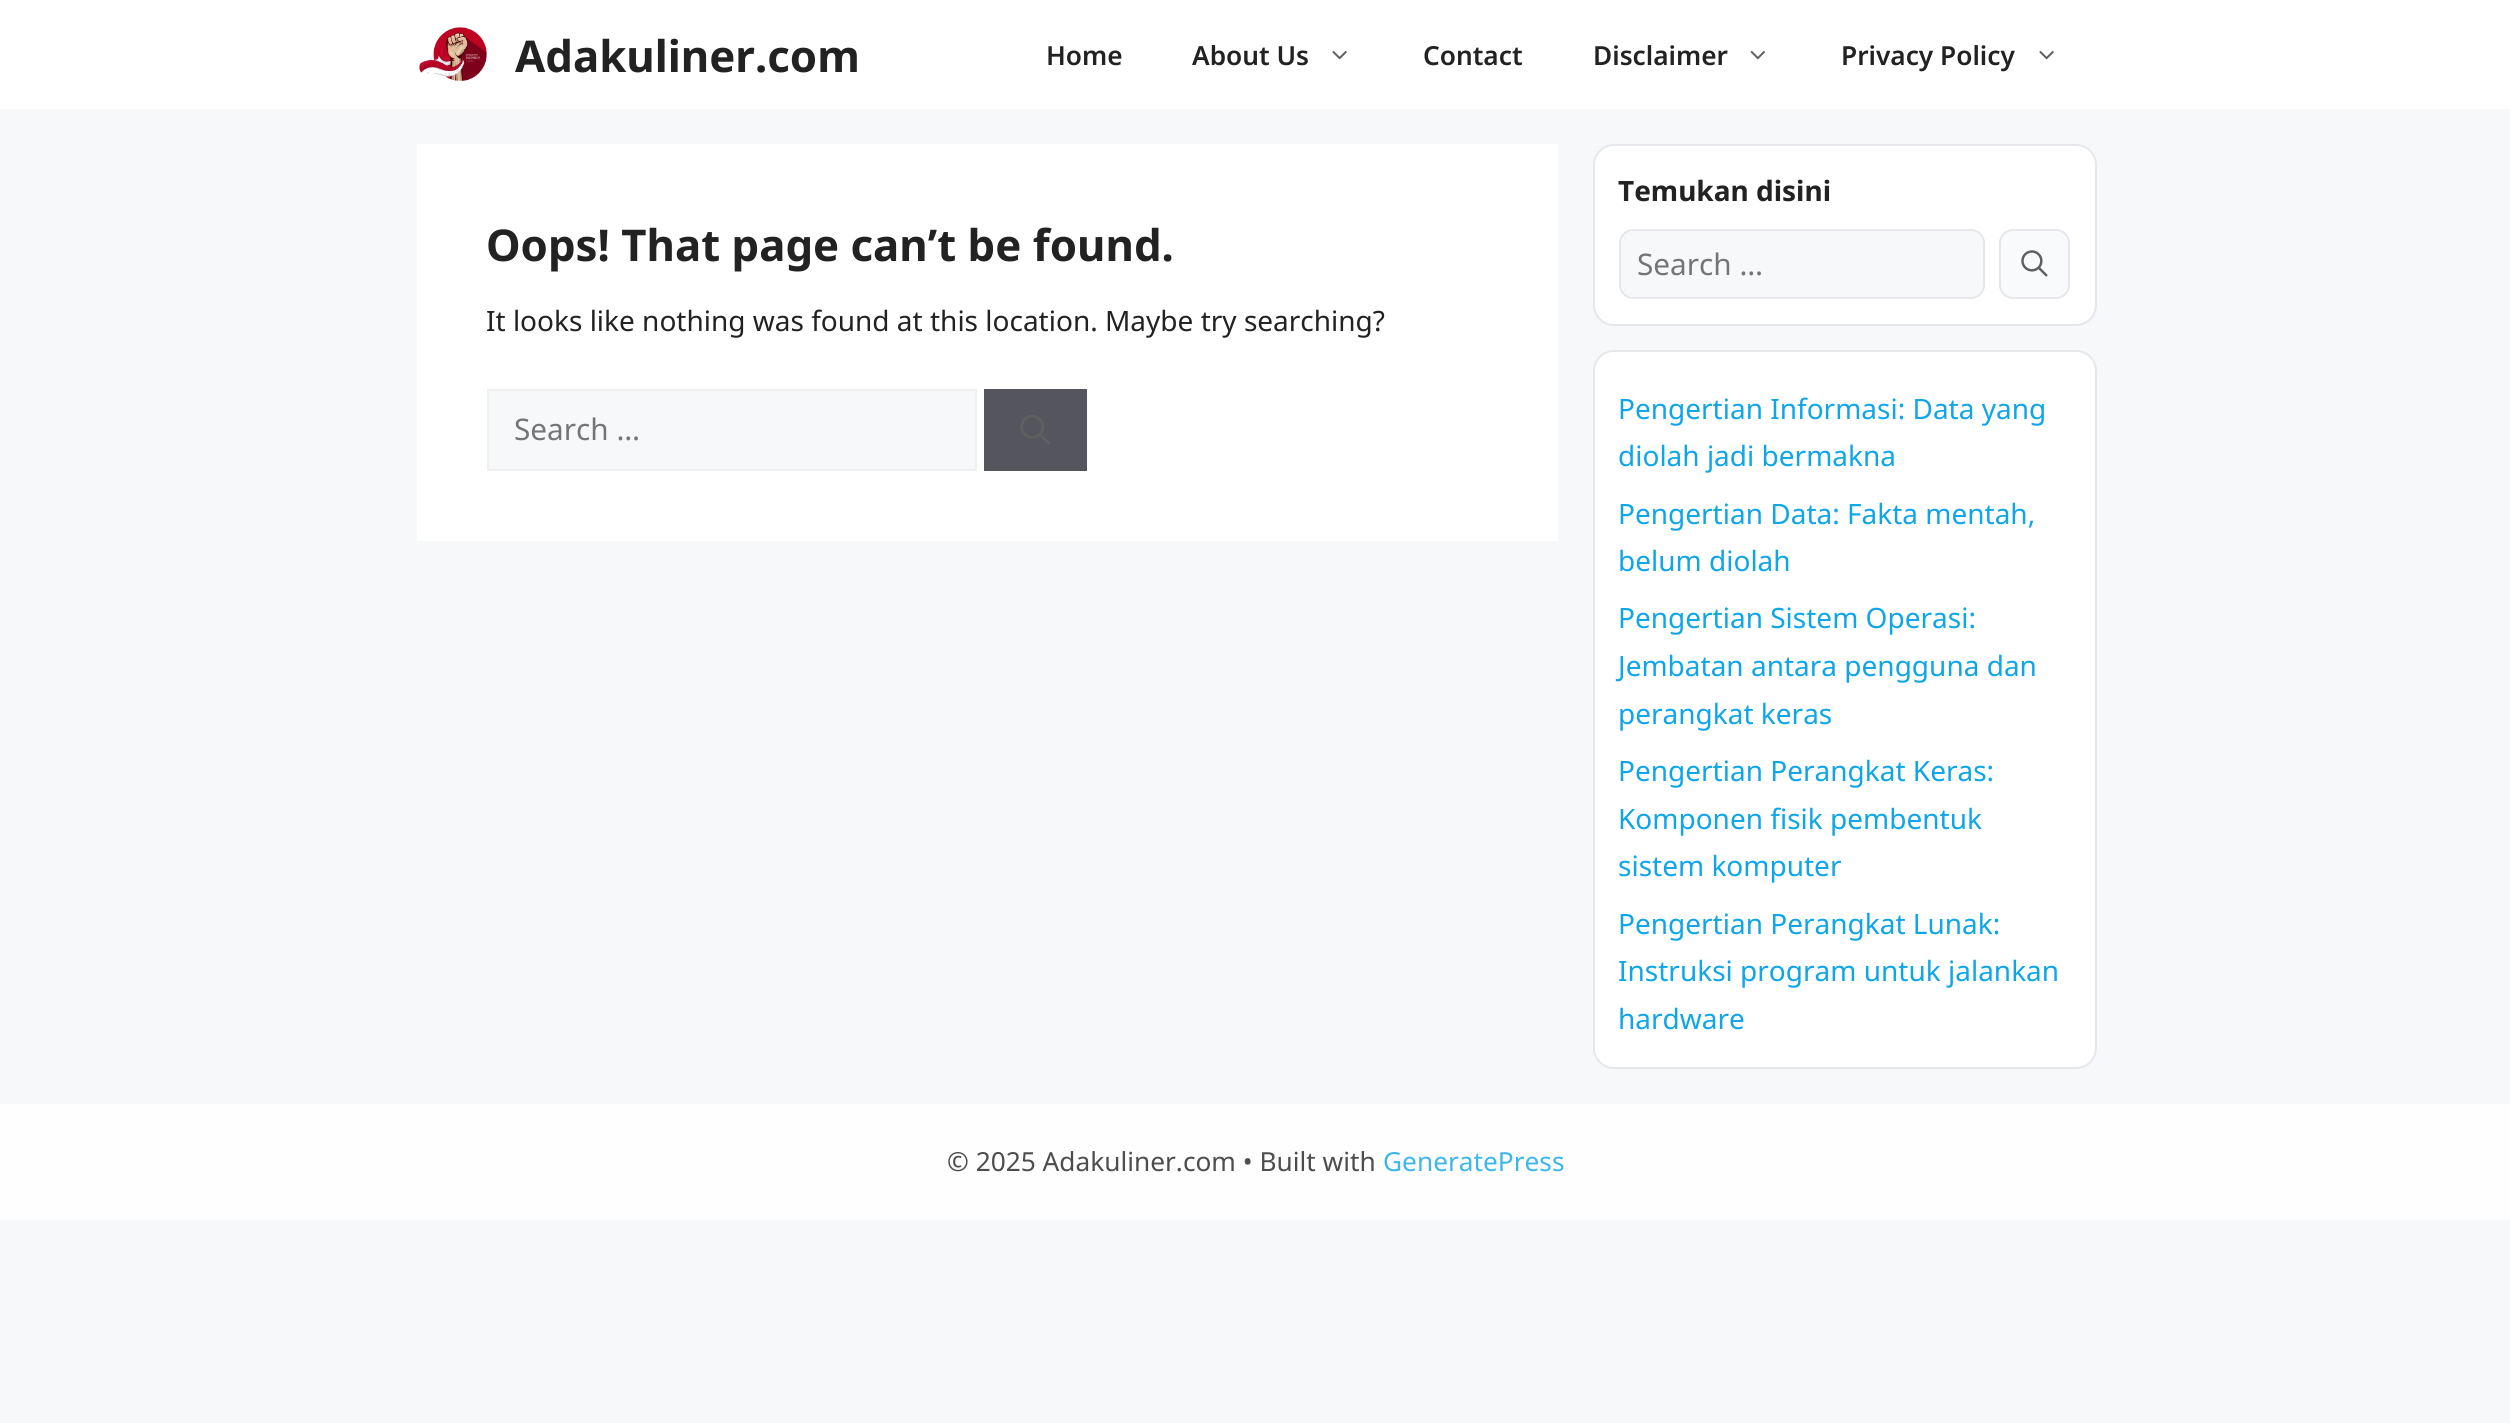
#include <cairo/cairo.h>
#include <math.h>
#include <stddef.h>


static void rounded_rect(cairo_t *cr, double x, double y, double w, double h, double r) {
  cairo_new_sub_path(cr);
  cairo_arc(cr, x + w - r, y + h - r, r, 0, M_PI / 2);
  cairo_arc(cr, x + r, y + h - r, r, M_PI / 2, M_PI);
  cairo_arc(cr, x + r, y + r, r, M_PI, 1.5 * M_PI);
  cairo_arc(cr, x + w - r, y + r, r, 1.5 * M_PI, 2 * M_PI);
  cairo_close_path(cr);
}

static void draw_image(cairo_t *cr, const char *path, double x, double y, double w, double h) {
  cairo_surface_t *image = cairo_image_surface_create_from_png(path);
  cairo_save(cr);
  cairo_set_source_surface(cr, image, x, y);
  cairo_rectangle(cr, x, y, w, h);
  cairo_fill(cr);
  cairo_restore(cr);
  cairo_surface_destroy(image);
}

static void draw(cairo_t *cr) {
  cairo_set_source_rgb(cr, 247 / 255.0, 248 / 255.0, 249 / 255.0);
  cairo_paint(cr);
  cairo_set_source_rgb(cr, 1, 1, 1);
  cairo_rectangle(cr, 0, 0, 2510, 109);
  cairo_fill(cr);
  draw_image(cr, "images/1.png", 419, 27, 68, 54);
  draw_image(cr, "images/2.png", 1332, 51, 15, 9);
  draw_image(cr, "images/3.png", 1750, 51, 15, 9);
  draw_image(cr, "images/2.png", 2039, 51, 15, 9);
  cairo_rectangle(cr, 417, 144, 1141, 397);
  cairo_fill(cr);
  cairo_set_source_rgb(cr, 247 / 255.0, 248 / 255.0, 249 / 255.0);
  cairo_rectangle(cr, 488, 390, 488, 80);
  cairo_fill_preserve(cr);
  cairo_set_source_rgb(cr, 240 / 255.0, 240 / 255.0, 240 / 255.0);
  cairo_stroke(cr);
  cairo_set_source_rgb(cr, 85 / 255.0, 85 / 255.0, 94 / 255.0);
  cairo_rectangle(cr, 984, 389, 103, 82);
  cairo_fill(cr);
  draw_image(cr, "images/4.png", 1020, 415, 30, 30);
  cairo_set_source_rgb(cr, 1, 1, 1);
  rounded_rect(cr, 1594, 145, 502, 180, 20);
  cairo_fill_preserve(cr);
  cairo_set_source_rgb(cr, 229 / 255.0, 231 / 255.0, 235 / 255.0);
  cairo_stroke(cr);
  cairo_set_source_rgb(cr, 247 / 255.0, 248 / 255.0, 249 / 255.0);
  rounded_rect(cr, 1620, 230, 364, 68, 13);
  cairo_fill_preserve(cr);
  cairo_set_source_rgb(cr, 229 / 255.0, 231 / 255.0, 235 / 255.0);
  cairo_stroke(cr);
  cairo_set_source_rgb(cr, 248 / 255.0, 250 / 255.0, 252 / 255.0);
  rounded_rect(cr, 2000, 230, 69, 68, 13);
  cairo_fill_preserve(cr);
  cairo_set_source_rgb(cr, 229 / 255.0, 231 / 255.0, 235 / 255.0);
  cairo_stroke(cr);
  draw_image(cr, "images/5.png", 2021, 250, 27, 27);
  cairo_set_source_rgb(cr, 1, 1, 1);
  rounded_rect(cr, 1594, 351, 502, 717, 20);
  cairo_fill_preserve(cr);
  cairo_set_source_rgb(cr, 229 / 255.0, 231 / 255.0, 235 / 255.0);
  cairo_stroke(cr);
  cairo_set_source_rgb(cr, 254 / 255.0, 254 / 255.0, 254 / 255.0);
  cairo_rectangle(cr, 0, 1104, 2510, 116);
  cairo_fill(cr);
  cairo_select_font_face(cr, "Noto Sans", CAIRO_FONT_SLANT_NORMAL, CAIRO_FONT_WEIGHT_BOLD);
  cairo_set_font_size(cr, 43.75);
  cairo_set_source_rgb(cr, 34 / 255.0, 34 / 255.0, 34 / 255.0);
  cairo_move_to(cr, 515, 72);
  cairo_show_text(cr, "Adakuliner.com");
  cairo_select_font_face(cr, "Noto Sans SemiBold", CAIRO_FONT_SLANT_NORMAL, CAIRO_FONT_WEIGHT_NORMAL);
  cairo_set_font_size(cr, 26.25);
  cairo_move_to(cr, 1046, 65);
  cairo_show_text(cr, "Home");
  cairo_move_to(cr, 1192, 65);
  cairo_show_text(cr, "About Us");
  cairo_move_to(cr, 1423, 65);
  cairo_show_text(cr, "Contact");
  cairo_move_to(cr, 1593, 65);
  cairo_show_text(cr, "Disclaimer");
  cairo_move_to(cr, 1841, 65);
  cairo_show_text(cr, "Privacy Policy");
  cairo_select_font_face(cr, "Noto Sans", CAIRO_FONT_SLANT_NORMAL, CAIRO_FONT_WEIGHT_BOLD);
  cairo_set_font_size(cr, 43.75);
  cairo_move_to(cr, 486, 261);
  cairo_show_text(cr, "Oops! That page can’t be found.");
  cairo_select_font_face(cr, "Noto Sans", CAIRO_FONT_SLANT_NORMAL, CAIRO_FONT_WEIGHT_NORMAL);
  cairo_set_font_size(cr, 28);
  cairo_move_to(cr, 486, 331);
  cairo_show_text(cr, "It looks like nothing was found at this location. Maybe try searching?");
  cairo_set_font_size(cr, 29.75);
  cairo_set_source_rgb(cr, 117 / 255.0, 117 / 255.0, 117 / 255.0);
  cairo_move_to(cr, 514, 440);
  cairo_show_text(cr, "Search …");
  cairo_select_font_face(cr, "Noto Sans", CAIRO_FONT_SLANT_NORMAL, CAIRO_FONT_WEIGHT_BOLD);
  cairo_set_font_size(cr, 28);
  cairo_set_source_rgb(cr, 34 / 255.0, 34 / 255.0, 34 / 255.0);
  cairo_move_to(cr, 1618, 201);
  cairo_show_text(cr, "Temukan disini");
  cairo_select_font_face(cr, "Noto Sans", CAIRO_FONT_SLANT_NORMAL, CAIRO_FONT_WEIGHT_NORMAL);
  cairo_set_font_size(cr, 29.75);
  cairo_set_source_rgb(cr, 117 / 255.0, 117 / 255.0, 117 / 255.0);
  cairo_move_to(cr, 1637, 275);
  cairo_show_text(cr, "Search …");
  cairo_set_font_size(cr, 28);
  cairo_set_source_rgb(cr, 14 / 255.0, 165 / 255.0, 233 / 255.0);
  cairo_move_to(cr, 1618, 419);
  cairo_show_text(cr, "Pengertian Informasi: Data yang");
  cairo_move_to(cr, 1618, 466);
  cairo_show_text(cr, "diolah jadi bermakna");
  cairo_move_to(cr, 1618, 524);
  cairo_show_text(cr, "Pengertian Data: Fakta mentah,");
  cairo_move_to(cr, 1618, 571);
  cairo_show_text(cr, "belum diolah");
  cairo_move_to(cr, 1618, 628);
  cairo_show_text(cr, "Pengertian Sistem Operasi:");
  cairo_move_to(cr, 1618, 676);
  cairo_show_text(cr, "Jembatan antara pengguna dan");
  cairo_move_to(cr, 1618, 724);
  cairo_show_text(cr, "perangkat keras");
  cairo_move_to(cr, 1618, 781);
  cairo_show_text(cr, "Pengertian Perangkat Keras:");
  cairo_move_to(cr, 1618, 829);
  cairo_show_text(cr, "Komponen fisik pembentuk");
  cairo_move_to(cr, 1618, 876);
  cairo_show_text(cr, "sistem komputer");
  cairo_move_to(cr, 1618, 934);
  cairo_show_text(cr, "Pengertian Perangkat Lunak:");
  cairo_move_to(cr, 1618, 981);
  cairo_show_text(cr, "Instruksi program untuk jalankan");
  cairo_move_to(cr, 1618, 1029);
  cairo_show_text(cr, "hardware");
  cairo_set_font_size(cr, 26.25);
  cairo_set_source_rgb(cr, 77 / 255.0, 77 / 255.0, 77 / 255.0);
  cairo_move_to(cr, 947, 1171);
  cairo_show_text(cr, "© 2025 Adakuliner.com • Built with");
  cairo_set_source_rgb(cr, 61 / 255.0, 182 / 255.0, 236 / 255.0);
  cairo_move_to(cr, 1383, 1171);
  cairo_show_text(cr, "GeneratePress");
}

int main(void) {
  cairo_surface_t *surface = cairo_image_surface_create(CAIRO_FORMAT_RGB24, 2510, 1423);
  cairo_t *cr = cairo_create(surface);
  cairo_font_options_t *options = cairo_font_options_create();
  cairo_font_options_set_hint_metrics(options, CAIRO_HINT_METRICS_OFF);
  cairo_font_options_set_hint_style(options, CAIRO_HINT_STYLE_NONE);
  cairo_set_font_options(cr, options);
  cairo_set_miter_limit(cr, 4);
  draw(cr);
  cairo_surface_write_to_png(surface, "out.png");
  cairo_font_options_destroy(options);
  cairo_destroy(cr);
  cairo_surface_destroy(surface);
  return 0;
}
